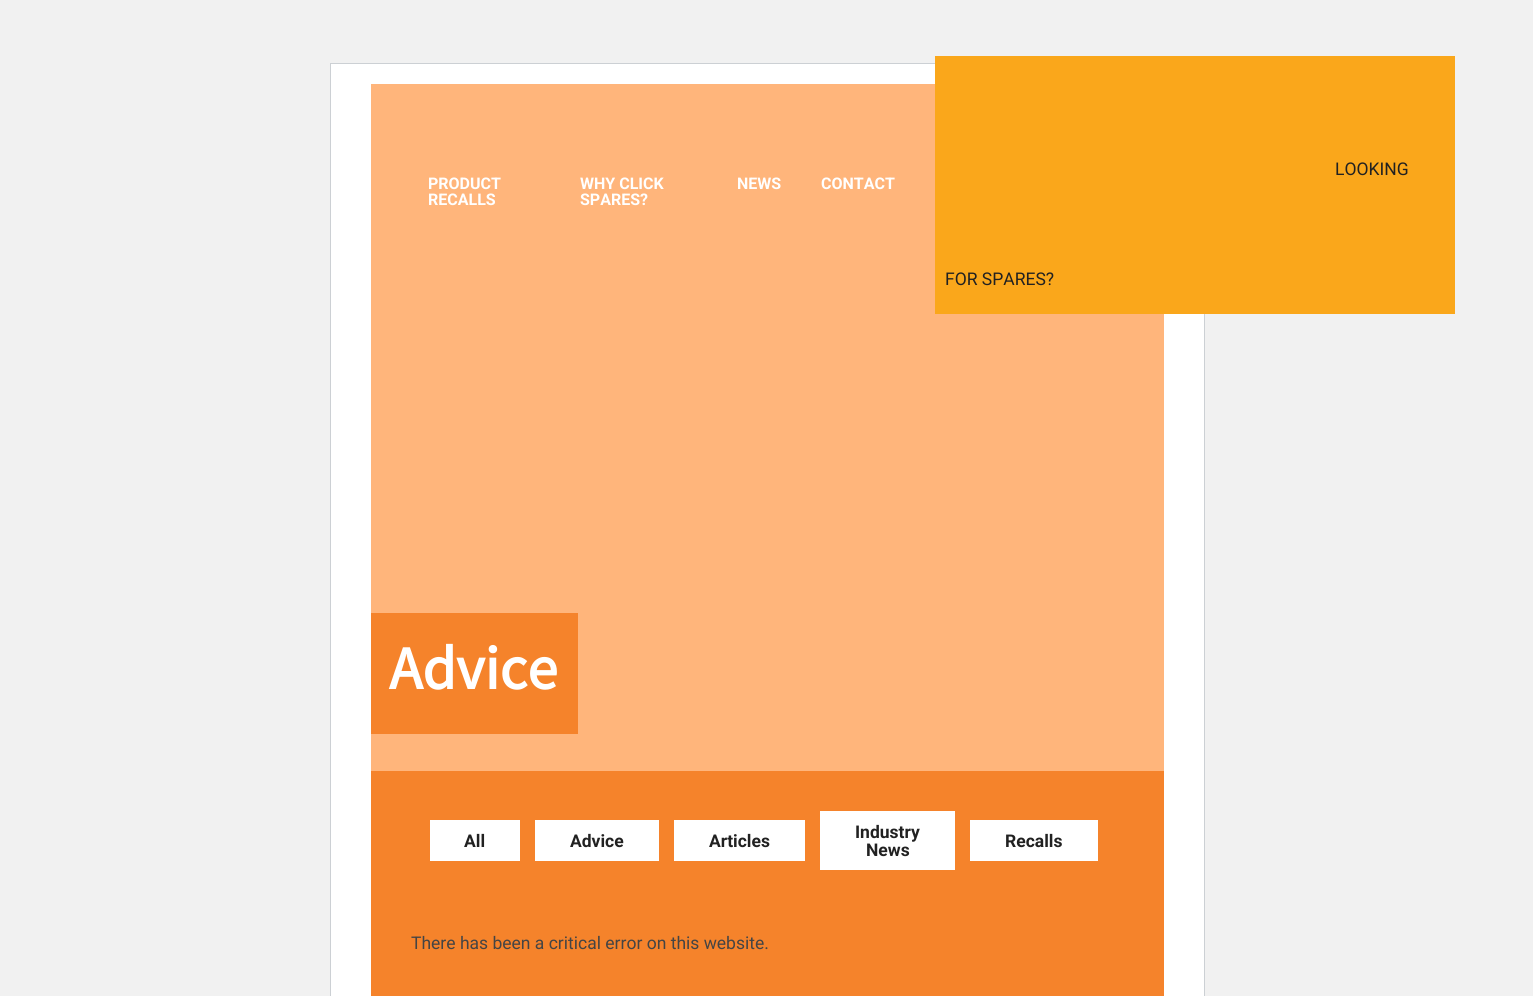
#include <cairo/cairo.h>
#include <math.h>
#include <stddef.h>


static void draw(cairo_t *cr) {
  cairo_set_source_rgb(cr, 241 / 255.0, 241 / 255.0, 241 / 255.0);
  cairo_paint(cr);
  cairo_set_source_rgb(cr, 1, 1, 1);
  cairo_rectangle(cr, 330.5, 63.5, 874, 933);
  cairo_fill_preserve(cr);
  cairo_set_source_rgb(cr, 204 / 255.0, 208 / 255.0, 212 / 255.0);
  cairo_set_line_width(cr, 1);
  cairo_stroke(cr);
  cairo_set_source_rgb(cr, 1, 181 / 255.0, 123 / 255.0);
  cairo_rectangle(cr, 371, 84, 793, 687);
  cairo_fill(cr);
  cairo_set_source_rgb(cr, 250 / 255.0, 167 / 255.0, 27 / 255.0);
  cairo_rectangle(cr, 935, 56, 520, 258);
  cairo_fill(cr);
  cairo_set_source_rgb(cr, 245 / 255.0, 131 / 255.0, 43 / 255.0);
  cairo_rectangle(cr, 371, 613, 207, 121);
  cairo_fill(cr);
  cairo_rectangle(cr, 371, 771, 793, 225);
  cairo_fill(cr);
  cairo_set_source_rgb(cr, 1, 1, 1);
  cairo_rectangle(cr, 430, 820, 90, 41);
  cairo_fill(cr);
  cairo_rectangle(cr, 535, 820, 124, 41);
  cairo_fill(cr);
  cairo_rectangle(cr, 674, 820, 131, 41);
  cairo_fill(cr);
  cairo_rectangle(cr, 820, 811, 135, 59);
  cairo_fill(cr);
  cairo_rectangle(cr, 970, 820, 128, 41);
  cairo_fill(cr);
  cairo_select_font_face(cr, "Roboto", CAIRO_FONT_SLANT_NORMAL, CAIRO_FONT_WEIGHT_BOLD);
  cairo_set_font_size(cr, 16);
  cairo_move_to(cr, 428, 189);
  cairo_show_text(cr, "PRODUCT");
  cairo_move_to(cr, 428, 205);
  cairo_show_text(cr, "RECALLS");
  cairo_move_to(cr, 580, 189);
  cairo_show_text(cr, "WHY CLICK");
  cairo_move_to(cr, 580, 205);
  cairo_show_text(cr, "SPARES?");
  cairo_move_to(cr, 737, 189);
  cairo_show_text(cr, "NEWS");
  cairo_move_to(cr, 821, 189);
  cairo_show_text(cr, "CONTACT");
  cairo_select_font_face(cr, "Roboto", CAIRO_FONT_SLANT_NORMAL, CAIRO_FONT_WEIGHT_NORMAL);
  cairo_set_font_size(cr, 17.5);
  cairo_set_source_rgb(cr, 33 / 255.0, 33 / 255.0, 33 / 255.0);
  cairo_move_to(cr, 1335, 175);
  cairo_show_text(cr, "LOOKING");
  cairo_move_to(cr, 945, 285);
  cairo_show_text(cr, "FOR SPARES?");
  cairo_select_font_face(cr, "Source Sans Pro", CAIRO_FONT_SLANT_NORMAL, CAIRO_FONT_WEIGHT_BOLD);
  cairo_set_font_size(cr, 61);
  cairo_set_source_rgb(cr, 1, 1, 1);
  cairo_move_to(cr, 389, 689);
  cairo_show_text(cr, "Advice");
  cairo_select_font_face(cr, "Roboto", CAIRO_FONT_SLANT_NORMAL, CAIRO_FONT_WEIGHT_BOLD);
  cairo_set_font_size(cr, 17.5);
  cairo_set_source_rgb(cr, 33 / 255.0, 33 / 255.0, 33 / 255.0);
  cairo_move_to(cr, 464, 847);
  cairo_show_text(cr, "All");
  cairo_move_to(cr, 570, 847);
  cairo_show_text(cr, "Advice");
  cairo_move_to(cr, 709, 847);
  cairo_show_text(cr, "Articles");
  cairo_move_to(cr, 855, 838);
  cairo_show_text(cr, "Industry");
  cairo_move_to(cr, 866, 856);
  cairo_show_text(cr, "News");
  cairo_move_to(cr, 1005, 847);
  cairo_show_text(cr, "Recalls");
  cairo_select_font_face(cr, "Roboto", CAIRO_FONT_SLANT_NORMAL, CAIRO_FONT_WEIGHT_NORMAL);
  cairo_set_source_rgb(cr, 68 / 255.0, 68 / 255.0, 68 / 255.0);
  cairo_move_to(cr, 411, 949);
  cairo_show_text(cr, "There has been a critical error on this website.");
}

int main(void) {
  cairo_surface_t *surface = cairo_image_surface_create(CAIRO_FORMAT_RGB24, 1533, 996);
  cairo_t *cr = cairo_create(surface);
  cairo_font_options_t *options = cairo_font_options_create();
  cairo_font_options_set_hint_metrics(options, CAIRO_HINT_METRICS_OFF);
  cairo_font_options_set_hint_style(options, CAIRO_HINT_STYLE_NONE);
  cairo_set_font_options(cr, options);
  cairo_set_miter_limit(cr, 4);
  draw(cr);
  cairo_surface_write_to_png(surface, "out.png");
  cairo_font_options_destroy(options);
  cairo_destroy(cr);
  cairo_surface_destroy(surface);
  return 0;
}
